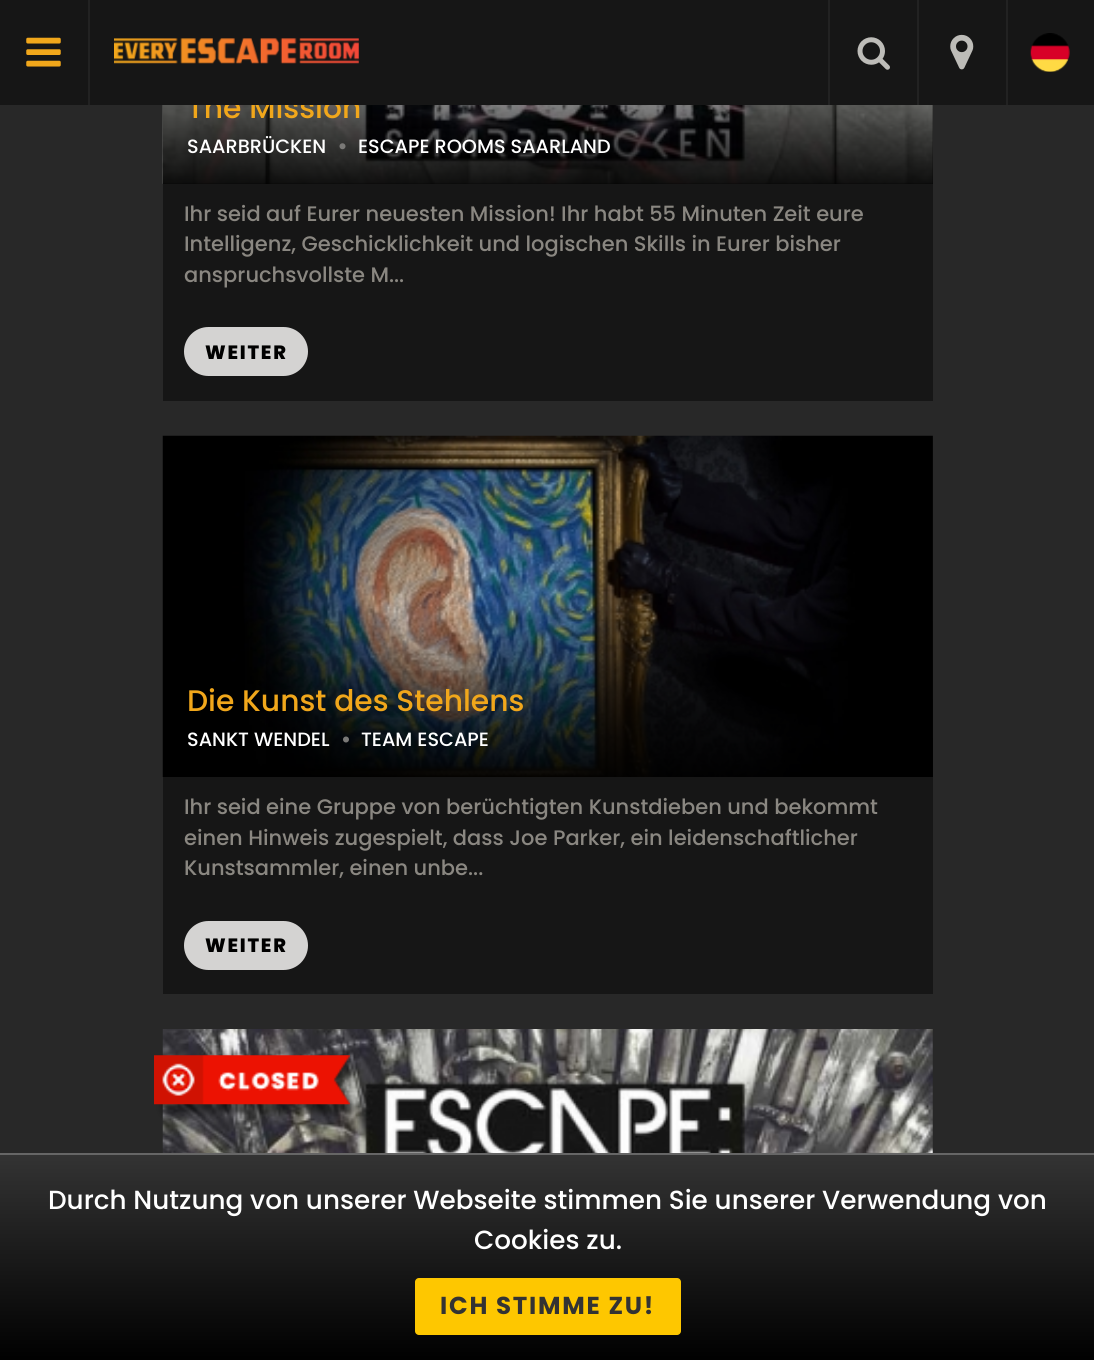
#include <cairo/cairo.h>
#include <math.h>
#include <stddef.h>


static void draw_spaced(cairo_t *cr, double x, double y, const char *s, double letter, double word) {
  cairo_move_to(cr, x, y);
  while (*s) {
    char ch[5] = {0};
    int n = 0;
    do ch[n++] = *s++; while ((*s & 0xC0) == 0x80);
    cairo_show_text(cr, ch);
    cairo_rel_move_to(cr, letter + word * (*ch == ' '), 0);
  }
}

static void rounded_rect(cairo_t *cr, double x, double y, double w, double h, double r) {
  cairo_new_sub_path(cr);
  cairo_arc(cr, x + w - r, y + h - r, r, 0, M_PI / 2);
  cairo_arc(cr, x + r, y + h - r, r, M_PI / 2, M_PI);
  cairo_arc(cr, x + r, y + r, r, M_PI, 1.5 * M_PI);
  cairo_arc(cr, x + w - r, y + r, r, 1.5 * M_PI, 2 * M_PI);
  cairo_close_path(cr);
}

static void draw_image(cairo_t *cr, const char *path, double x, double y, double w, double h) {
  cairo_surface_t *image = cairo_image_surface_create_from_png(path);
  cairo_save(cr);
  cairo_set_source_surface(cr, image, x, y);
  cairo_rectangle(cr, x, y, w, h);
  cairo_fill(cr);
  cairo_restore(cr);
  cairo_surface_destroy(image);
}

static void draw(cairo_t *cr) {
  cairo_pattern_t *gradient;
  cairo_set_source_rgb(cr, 40 / 255.0, 40 / 255.0, 40 / 255.0);
  cairo_paint(cr);
  cairo_set_source_rgb(cr, 22 / 255.0, 22 / 255.0, 22 / 255.0);
  cairo_rectangle(cr, 163, 105, 770, 296);
  cairo_fill(cr);
  draw_image(cr, "images/7.png", 162, 105, 771, 79);
  gradient = cairo_pattern_create_linear(548, 9, 548, 184);
  cairo_pattern_add_color_stop_rgba(gradient, 0, 0, 0, 0, 0);
  cairo_pattern_add_color_stop_rgba(gradient, 1, 0, 0, 0, 0.9);
  cairo_set_source(cr, gradient);
  cairo_pattern_destroy(gradient);
  cairo_rectangle(cr, 163, 105, 770, 79);
  cairo_fill(cr);
  draw_image(cr, "images/6.png", 339, 143, 7, 7);
  cairo_set_source_rgb(cr, 212 / 255.0, 211 / 255.0, 210 / 255.0);
  rounded_rect(cr, 184, 327, 124, 49, 24.5);
  cairo_fill(cr);
  cairo_set_source_rgb(cr, 22 / 255.0, 22 / 255.0, 22 / 255.0);
  cairo_rectangle(cr, 163, 436, 770, 558);
  cairo_fill(cr);
  draw_image(cr, "images/8.png", 162, 435, 771, 342);
  gradient = cairo_pattern_create_linear(548, 602, 548, 777);
  cairo_pattern_add_color_stop_rgba(gradient, 0, 0, 0, 0, 0);
  cairo_pattern_add_color_stop_rgba(gradient, 1, 0, 0, 0, 0.9);
  cairo_set_source(cr, gradient);
  cairo_pattern_destroy(gradient);
  cairo_rectangle(cr, 266, 606, 667, 171);
  cairo_fill(cr);
  draw_image(cr, "images/9.png", 343, 736, 6, 7);
  cairo_set_source_rgb(cr, 212 / 255.0, 211 / 255.0, 210 / 255.0);
  rounded_rect(cr, 184, 921, 124, 49, 24.5);
  cairo_fill(cr);
  draw_image(cr, "images/10.png", 162, 1029, 771, 124);
  draw_image(cr, "images/11.png", 154, 1055, 207, 64);
  gradient = cairo_pattern_create_linear(548, 1155, 548, 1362);
  cairo_pattern_add_color_stop_rgba(gradient, 0, 51 / 255.0, 51 / 255.0, 51 / 255.0, 1);
  cairo_pattern_add_color_stop_rgba(gradient, 1, 0, 0, 0, 1);
  cairo_set_source(cr, gradient);
  cairo_pattern_destroy(gradient);
  cairo_rectangle(cr, 0, 1155, 1094, 205);
  cairo_fill(cr);
  cairo_set_source_rgb(cr, 102 / 255.0, 102 / 255.0, 102 / 255.0);
  cairo_rectangle(cr, 0, 1153, 1094, 2);
  cairo_fill(cr);
  cairo_set_source_rgb(cr, 254 / 255.0, 199 / 255.0, 0);
  rounded_rect(cr, 415, 1278, 266, 57, 4);
  cairo_fill(cr);
  cairo_select_font_face(cr, "Poppins Medium", CAIRO_FONT_SLANT_NORMAL, CAIRO_FONT_WEIGHT_NORMAL);
  cairo_set_font_size(cr, 29.75);
  cairo_set_source_rgb(cr, 241 / 255.0, 167 / 255.0, 27 / 255.0);
  cairo_move_to(cr, 187, 118);
  cairo_show_text(cr, "The Mission");
  cairo_set_source_rgb(cr, 22 / 255.0, 22 / 255.0, 22 / 255.0);
  cairo_rectangle(cr, 0, 0, 1094, 105);
  cairo_fill(cr);
  draw_image(cr, "images/5.png", 1030, 33, 40, 39);
  cairo_set_source_rgb(cr, 34 / 255.0, 34 / 255.0, 34 / 255.0);
  cairo_rectangle(cr, 1006, 0, 2, 105);
  cairo_fill(cr);
  draw_image(cr, "images/4.png", 950, 34, 24, 36);
  cairo_rectangle(cr, 917, 0, 2, 105);
  cairo_fill(cr);
  draw_image(cr, "images/3.png", 857, 37, 33, 33);
  cairo_rectangle(cr, 828, 0, 2, 105);
  cairo_fill(cr);
  draw_image(cr, "images/2.png", 114, 38, 245, 26);
  draw_image(cr, "images/1.png", 26, 37, 35, 30);
  cairo_rectangle(cr, 88, 0, 2, 105);
  cairo_fill(cr);
  cairo_set_font_size(cr, 19.25);
  cairo_set_source_rgb(cr, 1, 1, 1);
  cairo_move_to(cr, 187, 153);
  cairo_show_text(cr, "SAARBRÜCKEN");
  cairo_move_to(cr, 358, 153);
  cairo_show_text(cr, "ESCAPE ROOMS SAARLAND");
  cairo_set_font_size(cr, 21);
  cairo_set_source_rgb(cr, 138 / 255.0, 135 / 255.0, 129 / 255.0);
  cairo_move_to(cr, 184, 221);
  cairo_show_text(cr, "Ihr seid auf Eurer neuesten Mission! Ihr habt 55 Minuten Zeit eure");
  cairo_move_to(cr, 184, 251);
  cairo_show_text(cr, "Intelligenz, Geschicklichkeit und logischen Skills in Eurer bisher");
  cairo_move_to(cr, 184, 282);
  cairo_show_text(cr, "anspruchsvollste M...");
  cairo_select_font_face(cr, "Poppins ExtraBold", CAIRO_FONT_SLANT_NORMAL, CAIRO_FONT_WEIGHT_NORMAL);
  cairo_set_font_size(cr, 19.25);
  cairo_set_source_rgb(cr, 0, 0, 0);
  draw_spaced(cr, 205, 359, "WEITER", 1.75, 0);
  cairo_select_font_face(cr, "Poppins Medium", CAIRO_FONT_SLANT_NORMAL, CAIRO_FONT_WEIGHT_NORMAL);
  cairo_set_font_size(cr, 29.75);
  cairo_set_source_rgb(cr, 241 / 255.0, 167 / 255.0, 27 / 255.0);
  cairo_move_to(cr, 187, 711);
  cairo_show_text(cr, "Die Kunst des Stehlens");
  cairo_set_font_size(cr, 19.25);
  cairo_set_source_rgb(cr, 1, 1, 1);
  cairo_move_to(cr, 187, 746);
  cairo_show_text(cr, "SANKT WENDEL");
  cairo_move_to(cr, 361, 746);
  cairo_show_text(cr, "TEAM ESCAPE");
  cairo_set_font_size(cr, 21);
  cairo_set_source_rgb(cr, 138 / 255.0, 135 / 255.0, 129 / 255.0);
  cairo_move_to(cr, 184, 814);
  cairo_show_text(cr, "Ihr seid eine Gruppe von berüchtigten Kunstdieben und bekommt");
  cairo_move_to(cr, 184, 845);
  cairo_show_text(cr, "einen Hinweis zugespielt, dass Joe Parker, ein leidenschaftlicher");
  cairo_move_to(cr, 184, 875);
  cairo_show_text(cr, "Kunstsammler, einen unbe...");
  cairo_select_font_face(cr, "Poppins ExtraBold", CAIRO_FONT_SLANT_NORMAL, CAIRO_FONT_WEIGHT_NORMAL);
  cairo_set_font_size(cr, 19.25);
  cairo_set_source_rgb(cr, 0, 0, 0);
  draw_spaced(cr, 205, 952, "WEITER", 1.75, 0);
  cairo_select_font_face(cr, "Poppins Medium", CAIRO_FONT_SLANT_NORMAL, CAIRO_FONT_WEIGHT_NORMAL);
  cairo_set_font_size(cr, 26.25);
  cairo_set_source_rgb(cr, 1, 1, 1);
  cairo_move_to(cr, 48, 1209);
  cairo_show_text(cr, "Durch Nutzung von unserer Webseite stimmen Sie unserer Verwendung von");
  cairo_move_to(cr, 474, 1249);
  cairo_show_text(cr, "Cookies zu.");
  cairo_select_font_face(cr, "Poppins", CAIRO_FONT_SLANT_NORMAL, CAIRO_FONT_WEIGHT_BOLD);
  cairo_set_font_size(cr, 24.5);
  cairo_set_source_rgb(cr, 51 / 255.0, 51 / 255.0, 51 / 255.0);
  draw_spaced(cr, 440, 1314, "ICH STIMME ZU!", 1.75, 0);
}

int main(void) {
  cairo_surface_t *surface = cairo_image_surface_create(CAIRO_FORMAT_RGB24, 1094, 1360);
  cairo_t *cr = cairo_create(surface);
  cairo_font_options_t *options = cairo_font_options_create();
  cairo_font_options_set_hint_metrics(options, CAIRO_HINT_METRICS_OFF);
  cairo_font_options_set_hint_style(options, CAIRO_HINT_STYLE_NONE);
  cairo_set_font_options(cr, options);
  cairo_set_miter_limit(cr, 4);
  draw(cr);
  cairo_surface_write_to_png(surface, "out.png");
  cairo_font_options_destroy(options);
  cairo_destroy(cr);
  cairo_surface_destroy(surface);
  return 0;
}
